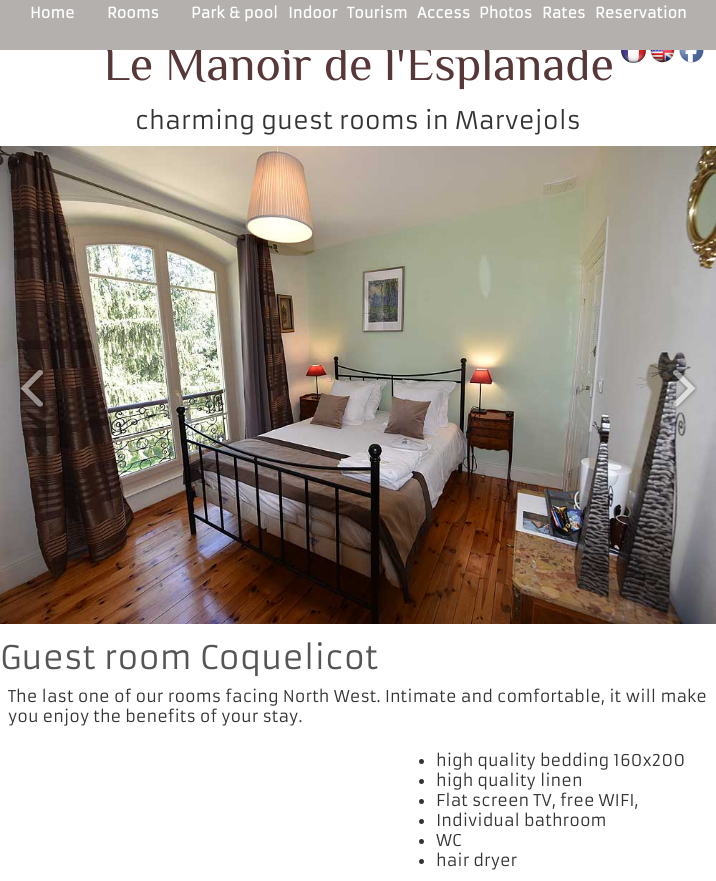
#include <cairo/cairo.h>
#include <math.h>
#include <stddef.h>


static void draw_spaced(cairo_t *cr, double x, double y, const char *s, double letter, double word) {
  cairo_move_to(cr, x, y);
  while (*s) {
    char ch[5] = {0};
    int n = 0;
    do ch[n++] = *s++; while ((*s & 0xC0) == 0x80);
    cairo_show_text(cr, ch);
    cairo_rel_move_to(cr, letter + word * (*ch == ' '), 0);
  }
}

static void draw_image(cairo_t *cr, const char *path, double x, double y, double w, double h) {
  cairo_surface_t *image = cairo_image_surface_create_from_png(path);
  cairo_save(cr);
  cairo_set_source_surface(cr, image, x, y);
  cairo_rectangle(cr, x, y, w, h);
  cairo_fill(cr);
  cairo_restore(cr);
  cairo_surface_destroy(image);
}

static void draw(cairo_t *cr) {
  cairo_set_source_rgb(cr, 1, 1, 1);
  cairo_paint(cr);
  draw_image(cr, "images/1.png", 621, 50, 25, 13);
  draw_image(cr, "images/2.png", 650, 50, 25, 13);
  draw_image(cr, "images/3.png", 679, 50, 25, 13);
  draw_image(cr, "images/4.png", 0, 146, 716, 478);
  draw_image(cr, "images/5.png", 18, 368, 27, 40);
  draw_image(cr, "images/6.png", 670, 367, 28, 43);
  cairo_set_source_rgb(cr, 51 / 255.0, 51 / 255.0, 51 / 255.0);
  cairo_arc(cr, 421.5, 761.5, 2.5, 0, 2 * M_PI);
  cairo_fill(cr);
  cairo_arc(cr, 421.5, 781.5, 2.5, 0, 2 * M_PI);
  cairo_fill(cr);
  cairo_arc(cr, 421.5, 801.5, 2.5, 0, 2 * M_PI);
  cairo_fill(cr);
  cairo_arc(cr, 421.5, 821.5, 2.5, 0, 2 * M_PI);
  cairo_fill(cr);
  cairo_arc(cr, 421.5, 841.5, 2.5, 0, 2 * M_PI);
  cairo_fill(cr);
  cairo_arc(cr, 421.5, 861.5, 2.5, 0, 2 * M_PI);
  cairo_fill(cr);
  cairo_select_font_face(cr, "El Messiri", CAIRO_FONT_SLANT_NORMAL, CAIRO_FONT_WEIGHT_NORMAL);
  cairo_set_font_size(cr, 48);
  cairo_set_source_rgb(cr, 87 / 255.0, 55 / 255.0, 55 / 255.0);
  cairo_move_to(cr, 103, 80);
  cairo_show_text(cr, "Le Manoir de l'Esplanade");
  cairo_set_source_rgb(cr, 179 / 255.0, 176 / 255.0, 174 / 255.0);
  cairo_rectangle(cr, 0, 0, 716, 50);
  cairo_fill(cr);
  cairo_select_font_face(cr, "Armata", CAIRO_FONT_SLANT_NORMAL, CAIRO_FONT_WEIGHT_BOLD);
  cairo_set_font_size(cr, 14.5);
  cairo_set_source_rgb(cr, 1, 1, 1);
  cairo_move_to(cr, 595, 18);
  cairo_show_text(cr, "Reservation");
  cairo_move_to(cr, 542, 18);
  cairo_show_text(cr, "Rates");
  cairo_move_to(cr, 479, 18);
  cairo_show_text(cr, "Photos");
  cairo_move_to(cr, 417, 18);
  cairo_show_text(cr, "Access");
  cairo_move_to(cr, 347, 18);
  cairo_show_text(cr, "Tourism");
  cairo_move_to(cr, 288, 18);
  cairo_show_text(cr, "Indoor");
  cairo_move_to(cr, 191, 18);
  cairo_show_text(cr, "Park & pool");
  cairo_move_to(cr, 107, 18);
  cairo_show_text(cr, "Rooms");
  cairo_move_to(cr, 30, 18);
  cairo_show_text(cr, "Home");
  cairo_select_font_face(cr, "Armata", CAIRO_FONT_SLANT_NORMAL, CAIRO_FONT_WEIGHT_NORMAL);
  cairo_set_font_size(cr, 24);
  cairo_set_source_rgb(cr, 51 / 255.0, 51 / 255.0, 51 / 255.0);
  cairo_move_to(cr, 135, 129);
  cairo_show_text(cr, "charming guest rooms in Marvejols");
  cairo_set_font_size(cr, 32);
  cairo_set_source_rgb(cr, 85 / 255.0, 85 / 255.0, 85 / 255.0);
  cairo_move_to(cr, 0, 669);
  cairo_show_text(cr, "Guest room Coquelicot");
  cairo_set_font_size(cr, 16);
  cairo_set_source_rgb(cr, 51 / 255.0, 51 / 255.0, 51 / 255.0);
  draw_spaced(cr, 8, 702, "The last one of our rooms facing North West. Intimate and comfortable, it will make", 0, 0.25);
  cairo_move_to(cr, 8, 722);
  cairo_show_text(cr, "you enjoy the benefits of your stay.");
  cairo_move_to(cr, 436, 766);
  cairo_show_text(cr, "high quality bedding 160x200");
  cairo_move_to(cr, 436, 786);
  cairo_show_text(cr, "high quality linen");
  cairo_move_to(cr, 436, 806);
  cairo_show_text(cr, "Flat screen TV, free WIFI,");
  cairo_move_to(cr, 436, 826);
  cairo_show_text(cr, "Individual bathroom");
  cairo_move_to(cr, 436, 846);
  cairo_show_text(cr, "WC");
  cairo_move_to(cr, 436, 866);
  cairo_show_text(cr, "hair dryer");
}

int main(void) {
  cairo_surface_t *surface = cairo_image_surface_create(CAIRO_FORMAT_RGB24, 716, 881);
  cairo_t *cr = cairo_create(surface);
  cairo_font_options_t *options = cairo_font_options_create();
  cairo_font_options_set_hint_metrics(options, CAIRO_HINT_METRICS_OFF);
  cairo_font_options_set_hint_style(options, CAIRO_HINT_STYLE_NONE);
  cairo_set_font_options(cr, options);
  cairo_set_miter_limit(cr, 4);
  draw(cr);
  cairo_surface_write_to_png(surface, "out.png");
  cairo_font_options_destroy(options);
  cairo_destroy(cr);
  cairo_surface_destroy(surface);
  return 0;
}
